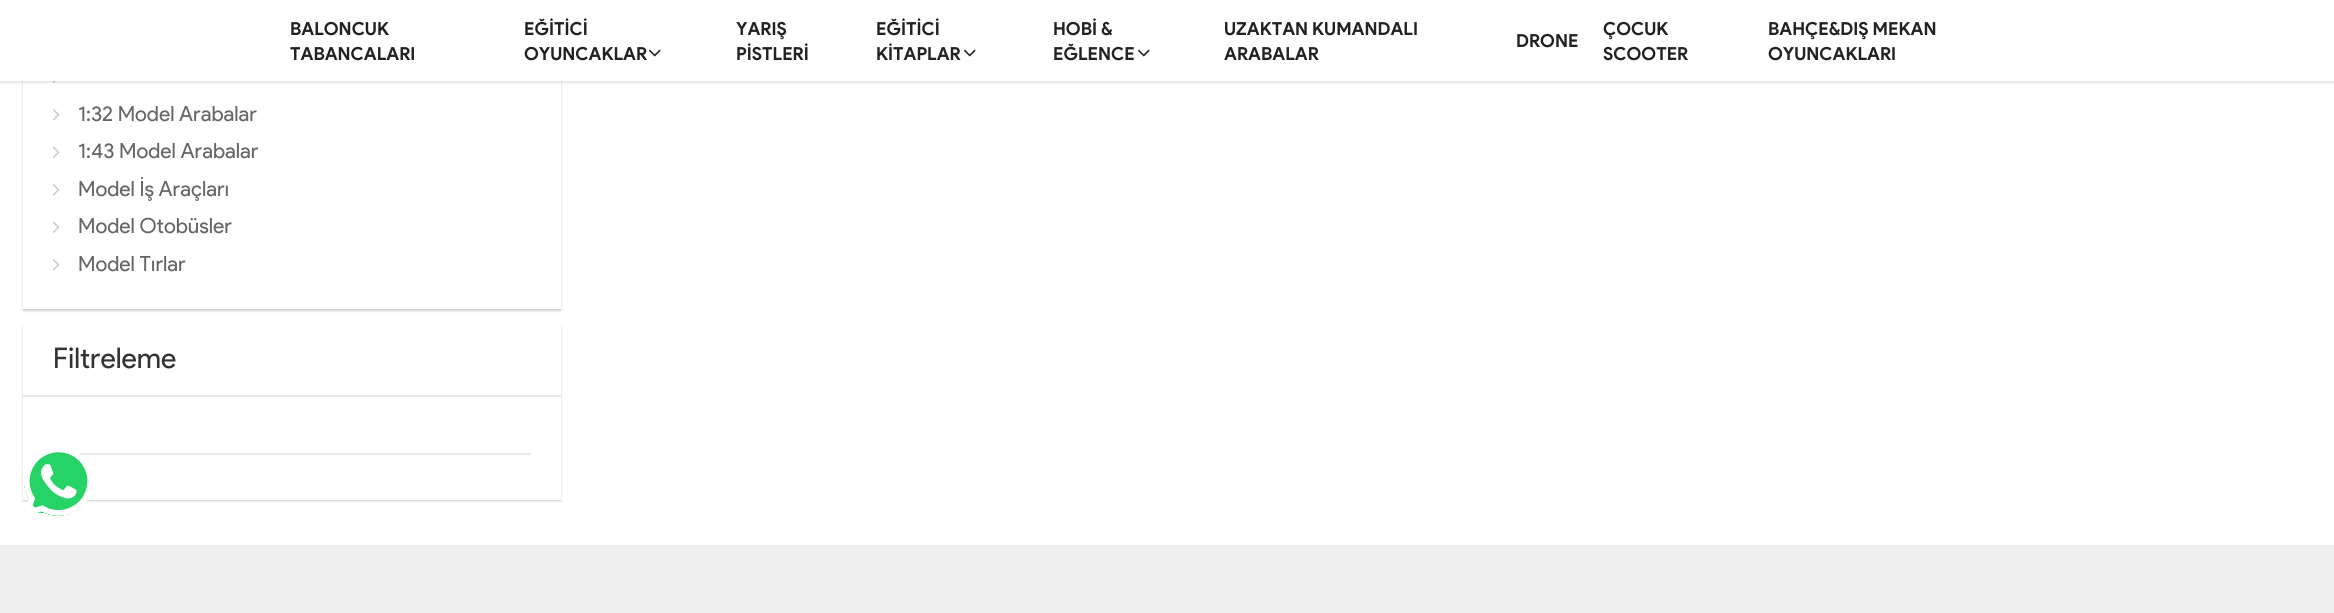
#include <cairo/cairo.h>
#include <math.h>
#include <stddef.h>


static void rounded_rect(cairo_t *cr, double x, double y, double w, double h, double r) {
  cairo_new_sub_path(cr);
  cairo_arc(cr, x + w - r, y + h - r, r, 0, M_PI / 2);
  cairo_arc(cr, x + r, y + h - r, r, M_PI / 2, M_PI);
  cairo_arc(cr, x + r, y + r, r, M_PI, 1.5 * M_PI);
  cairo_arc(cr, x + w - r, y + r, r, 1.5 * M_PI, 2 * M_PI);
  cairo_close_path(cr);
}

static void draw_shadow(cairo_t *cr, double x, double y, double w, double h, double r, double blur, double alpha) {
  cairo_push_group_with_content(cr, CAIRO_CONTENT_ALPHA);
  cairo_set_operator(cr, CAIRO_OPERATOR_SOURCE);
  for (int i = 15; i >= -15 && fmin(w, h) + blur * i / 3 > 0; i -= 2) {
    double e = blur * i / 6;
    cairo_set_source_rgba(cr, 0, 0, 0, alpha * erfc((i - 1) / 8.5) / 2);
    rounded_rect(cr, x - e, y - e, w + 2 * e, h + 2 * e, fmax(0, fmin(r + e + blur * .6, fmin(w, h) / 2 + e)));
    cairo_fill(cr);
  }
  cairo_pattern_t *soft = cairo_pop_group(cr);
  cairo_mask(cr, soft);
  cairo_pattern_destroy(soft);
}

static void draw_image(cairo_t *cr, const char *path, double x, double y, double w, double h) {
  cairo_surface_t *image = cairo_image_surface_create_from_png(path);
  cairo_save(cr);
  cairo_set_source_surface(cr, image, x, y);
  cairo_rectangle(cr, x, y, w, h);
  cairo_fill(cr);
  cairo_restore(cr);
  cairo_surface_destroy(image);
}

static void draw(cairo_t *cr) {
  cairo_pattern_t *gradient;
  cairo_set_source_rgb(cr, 1, 1, 1);
  cairo_paint(cr);
  cairo_save(cr);
  cairo_set_fill_rule(cr, CAIRO_FILL_RULE_EVEN_ODD);
  cairo_new_path(cr);
  cairo_move_to(cr, 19, 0);
  cairo_line_to(cr, 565, 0);
  cairo_line_to(cr, 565, 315);
  cairo_line_to(cr, 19, 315);
  cairo_close_path(cr);
  cairo_move_to(cr, 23, -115);
  cairo_line_to(cr, 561, -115);
  cairo_line_to(cr, 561, 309);
  cairo_line_to(cr, 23, 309);
  cairo_close_path(cr);
  cairo_clip(cr);
  cairo_set_source_rgb(cr, 0, 0, 0);
  draw_shadow(cr, 23, -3, 538, 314, 0, 1, 0.2);
  cairo_restore(cr);
  draw_image(cr, "images/2.png", 53, 81, 3, 2);
  cairo_set_source_rgb(cr, 0, 0, 0);
  draw_shadow(cr, 0, 2, 2334, 81, 0, 1, 0.1);
  cairo_set_source_rgb(cr, 1, 1, 1);
  cairo_rectangle(cr, 0, 0, 2334, 81);
  cairo_fill(cr);
  draw_image(cr, "images/1.png", 648, 49, 13, 8);
  draw_image(cr, "images/1.png", 963, 49, 13, 8);
  draw_image(cr, "images/1.png", 1137, 49, 13, 8);
  draw_image(cr, "images/3.png", 53, 109, 7, 12);
  draw_image(cr, "images/4.png", 53, 146, 7, 12);
  draw_image(cr, "images/3.png", 53, 184, 7, 12);
  draw_image(cr, "images/4.png", 53, 221, 7, 12);
  draw_image(cr, "images/3.png", 53, 259, 7, 12);
  cairo_set_source_rgb(cr, 0, 0, 0);
  draw_shadow(cr, 23, 326, 538, 175, 0, 1, 0.2);
  cairo_set_source_rgb(cr, 1, 1, 1);
  cairo_rectangle(cr, 23, 324, 538, 176);
  cairo_fill(cr);
  cairo_set_source_rgb(cr, 234 / 255.0, 234 / 255.0, 234 / 255.0);
  cairo_rectangle(cr, 23, 395, 538, 2);
  cairo_fill(cr);
  cairo_rectangle(cr, 78, 453, 453, 2);
  cairo_fill(cr);
  gradient = cairo_pattern_create_radial(58, 482, 0, 58, 482, 54);
  cairo_pattern_add_color_stop_rgba(gradient, 0.63, 37 / 255.0, 211 / 255.0, 102 / 255.0, 1);
  cairo_pattern_add_color_stop_rgba(gradient, 0.63, 37 / 255.0, 211 / 255.0, 102 / 255.0, 0);
  cairo_set_source(cr, gradient);
  cairo_pattern_destroy(gradient);
  cairo_rectangle(cr, 24, 452, 64, 64);
  cairo_fill(cr);
  cairo_set_source_rgb(cr, 37 / 255.0, 211 / 255.0, 102 / 255.0);
  cairo_rectangle(cr, 38, 510, 5, 3);
  cairo_fill(cr);
  draw_image(cr, "images/5.png", 24, 448, 68, 68);
  cairo_set_source_rgb(cr, 238 / 255.0, 238 / 255.0, 238 / 255.0);
  cairo_rectangle(cr, 0, 545, 2334, 68);
  cairo_fill(cr);
  cairo_select_font_face(cr, "Product Sans", CAIRO_FONT_SLANT_NORMAL, CAIRO_FONT_WEIGHT_BOLD);
  cairo_set_font_size(cr, 18);
  cairo_set_source_rgb(cr, 34 / 255.0, 34 / 255.0, 34 / 255.0);
  cairo_move_to(cr, 290, 35);
  cairo_show_text(cr, "BALONCUK");
  cairo_move_to(cr, 290, 60);
  cairo_show_text(cr, "TABANCALARI");
  cairo_move_to(cr, 524, 35);
  cairo_show_text(cr, "EĞİTİCİ");
  cairo_move_to(cr, 524, 60);
  cairo_show_text(cr, "OYUNCAKLAR");
  cairo_move_to(cr, 736, 35);
  cairo_show_text(cr, "YARIŞ");
  cairo_move_to(cr, 736, 60);
  cairo_show_text(cr, "PİSTLERİ");
  cairo_move_to(cr, 876, 35);
  cairo_show_text(cr, "EĞİTİCİ");
  cairo_move_to(cr, 876, 60);
  cairo_show_text(cr, "KİTAPLAR");
  cairo_move_to(cr, 1053, 35);
  cairo_show_text(cr, "HOBİ &");
  cairo_move_to(cr, 1053, 60);
  cairo_show_text(cr, "EĞLENCE");
  cairo_move_to(cr, 1224, 35);
  cairo_show_text(cr, "UZAKTAN KUMANDALI");
  cairo_move_to(cr, 1224, 60);
  cairo_show_text(cr, "ARABALAR");
  cairo_move_to(cr, 1516, 47);
  cairo_show_text(cr, "DRONE");
  cairo_move_to(cr, 1603, 35);
  cairo_show_text(cr, "ÇOCUK");
  cairo_move_to(cr, 1603, 60);
  cairo_show_text(cr, "SCOOTER");
  cairo_move_to(cr, 1768, 35);
  cairo_show_text(cr, "BAHÇE&DIŞ MEKAN");
  cairo_move_to(cr, 1768, 60);
  cairo_show_text(cr, "OYUNCAKLARI");
  cairo_select_font_face(cr, "Product Sans", CAIRO_FONT_SLANT_NORMAL, CAIRO_FONT_WEIGHT_NORMAL);
  cairo_set_font_size(cr, 21);
  cairo_set_source_rgb(cr, 102 / 255.0, 102 / 255.0, 102 / 255.0);
  cairo_move_to(cr, 78, 121);
  cairo_show_text(cr, "1:32 Model Arabalar");
  cairo_move_to(cr, 78, 158);
  cairo_show_text(cr, "1:43 Model Arabalar");
  cairo_move_to(cr, 78, 196);
  cairo_show_text(cr, "Model İş Araçları");
  cairo_move_to(cr, 78, 233);
  cairo_show_text(cr, "Model Otobüsler");
  cairo_move_to(cr, 78, 271);
  cairo_show_text(cr, "Model Tırlar");
  cairo_set_font_size(cr, 28.5);
  cairo_set_source_rgb(cr, 51 / 255.0, 51 / 255.0, 51 / 255.0);
  cairo_move_to(cr, 53, 368);
  cairo_show_text(cr, "Filtreleme");
}

int main(void) {
  cairo_surface_t *surface = cairo_image_surface_create(CAIRO_FORMAT_RGB24, 2334, 613);
  cairo_t *cr = cairo_create(surface);
  cairo_font_options_t *options = cairo_font_options_create();
  cairo_font_options_set_hint_metrics(options, CAIRO_HINT_METRICS_OFF);
  cairo_font_options_set_hint_style(options, CAIRO_HINT_STYLE_NONE);
  cairo_set_font_options(cr, options);
  cairo_set_miter_limit(cr, 4);
  draw(cr);
  cairo_surface_write_to_png(surface, "out.png");
  cairo_font_options_destroy(options);
  cairo_destroy(cr);
  cairo_surface_destroy(surface);
  return 0;
}
